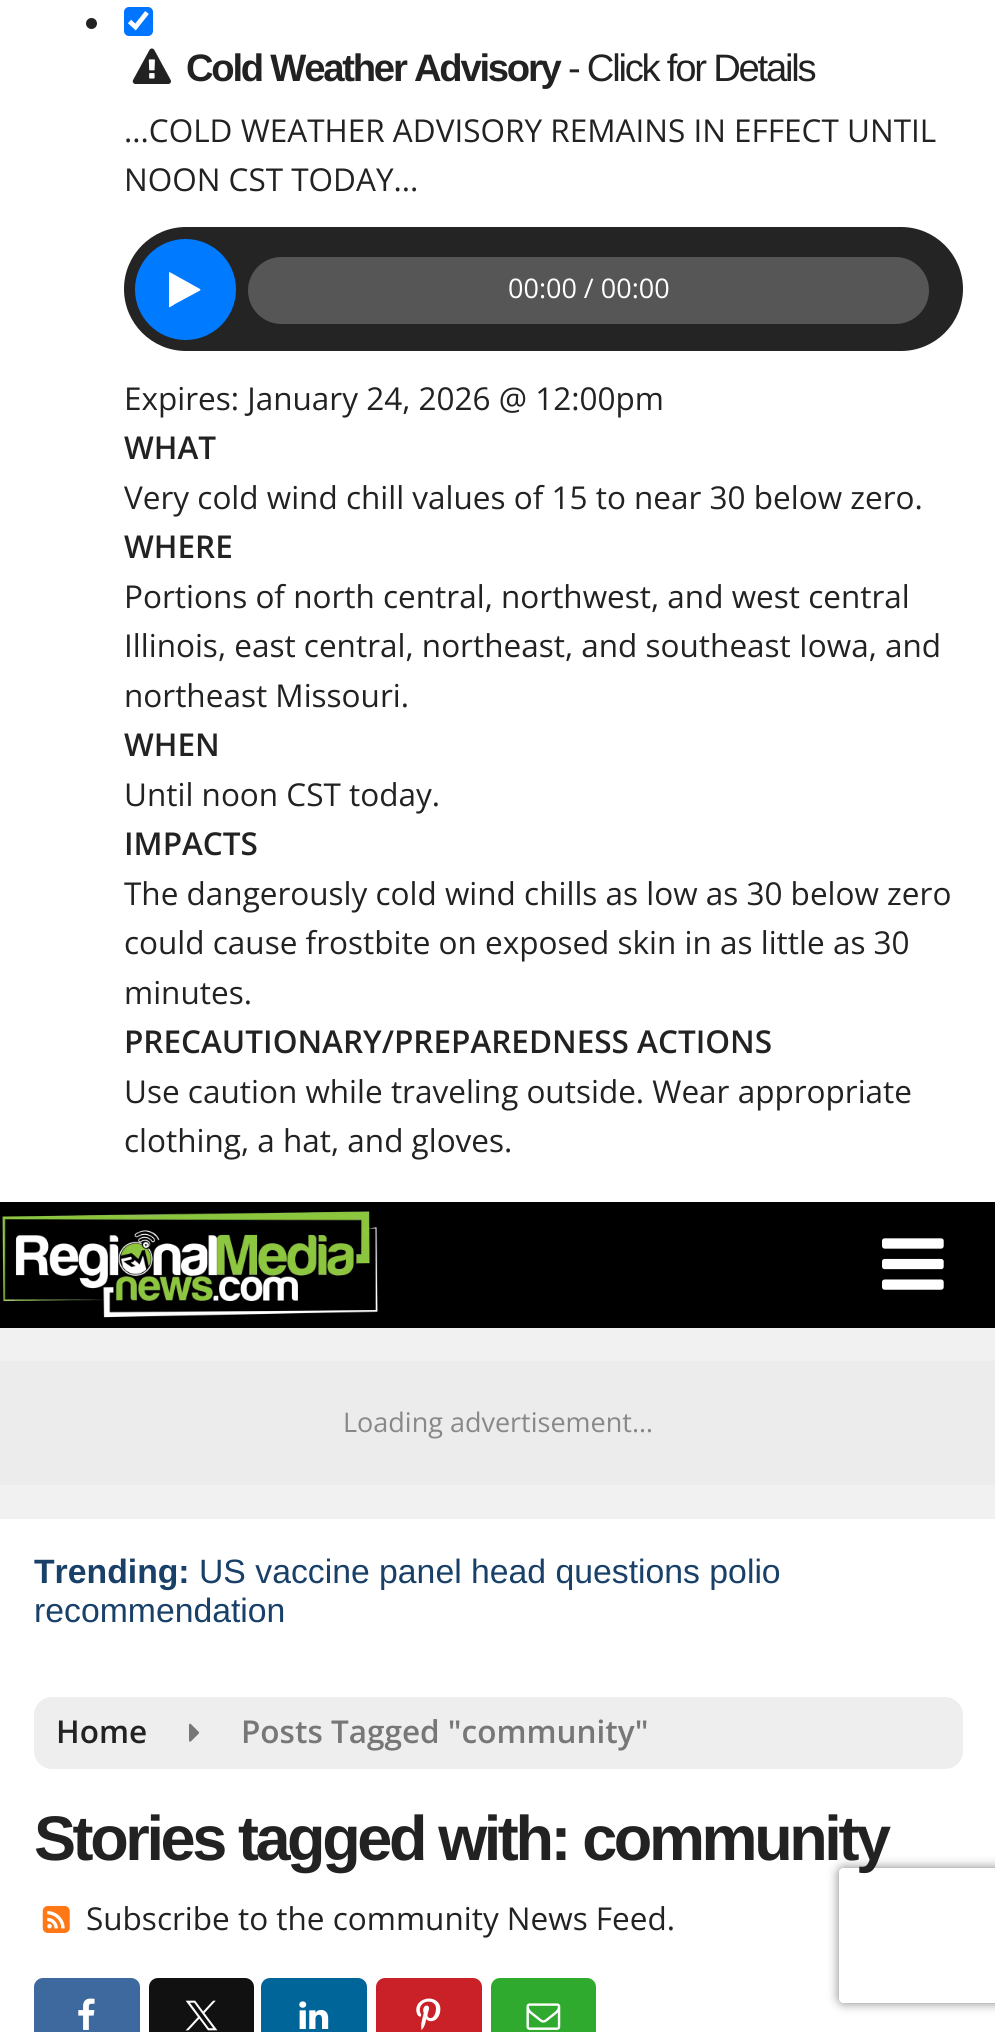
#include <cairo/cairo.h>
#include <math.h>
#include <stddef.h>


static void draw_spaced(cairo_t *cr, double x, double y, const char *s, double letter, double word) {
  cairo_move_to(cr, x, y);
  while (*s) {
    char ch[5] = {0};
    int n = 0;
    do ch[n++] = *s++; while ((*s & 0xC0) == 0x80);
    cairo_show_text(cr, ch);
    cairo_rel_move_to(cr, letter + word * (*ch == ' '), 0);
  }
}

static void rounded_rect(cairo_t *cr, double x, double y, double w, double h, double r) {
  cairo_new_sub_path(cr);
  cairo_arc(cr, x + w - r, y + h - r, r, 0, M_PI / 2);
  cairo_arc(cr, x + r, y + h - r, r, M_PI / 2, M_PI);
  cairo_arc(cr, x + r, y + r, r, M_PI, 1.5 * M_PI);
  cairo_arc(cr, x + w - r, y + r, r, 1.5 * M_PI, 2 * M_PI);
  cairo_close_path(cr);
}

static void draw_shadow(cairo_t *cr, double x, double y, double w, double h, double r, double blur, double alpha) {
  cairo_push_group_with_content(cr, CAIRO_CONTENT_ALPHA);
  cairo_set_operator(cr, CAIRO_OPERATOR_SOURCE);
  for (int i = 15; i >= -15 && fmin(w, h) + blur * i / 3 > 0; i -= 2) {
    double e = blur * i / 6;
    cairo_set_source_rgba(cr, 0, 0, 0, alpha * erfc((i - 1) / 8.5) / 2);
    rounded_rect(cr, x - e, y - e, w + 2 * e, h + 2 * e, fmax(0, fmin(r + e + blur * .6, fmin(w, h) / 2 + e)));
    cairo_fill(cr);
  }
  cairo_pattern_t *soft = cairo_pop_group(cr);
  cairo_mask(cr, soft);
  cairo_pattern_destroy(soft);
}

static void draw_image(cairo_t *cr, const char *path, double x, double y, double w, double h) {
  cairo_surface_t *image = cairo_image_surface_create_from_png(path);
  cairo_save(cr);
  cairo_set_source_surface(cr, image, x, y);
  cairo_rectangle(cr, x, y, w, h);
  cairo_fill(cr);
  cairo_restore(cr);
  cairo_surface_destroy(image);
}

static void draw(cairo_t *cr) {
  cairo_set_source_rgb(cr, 1, 1, 1);
  cairo_paint(cr);
  cairo_set_source_rgb(cr, 34 / 255.0, 34 / 255.0, 34 / 255.0);
  cairo_arc(cr, 91.5, 23.5, 5.5, 0, 2 * M_PI);
  cairo_fill(cr);
  cairo_set_source_rgb(cr, 0, 117 / 255.0, 1);
  rounded_rect(cr, 124, 7, 29, 29, 5);
  cairo_fill(cr);
  cairo_new_path(cr);
  cairo_move_to(cr, 129.5, 21.5);
  cairo_line_to(cr, 135.5, 27);
  cairo_line_to(cr, 147, 12.5);
  cairo_set_source_rgb(cr, 1, 1, 1);
  cairo_set_line_width(cr, 4.7);
  cairo_stroke(cr);
  draw_image(cr, "images/1.png", 132, 48, 39, 36);
  cairo_set_source_rgb(cr, 36 / 255.0, 36 / 255.0, 36 / 255.0);
  rounded_rect(cr, 124, 227, 839, 124, 62);
  cairo_fill(cr);
  cairo_set_source_rgb(cr, 0, 123 / 255.0, 1);
  cairo_arc(cr, 185.5, 289.5, 50.5, 0, 2 * M_PI);
  cairo_fill(cr);
  cairo_set_source_rgb(cr, 1, 1, 1);
  cairo_new_path(cr);
  cairo_move_to(cr, 200, 290.5);
  cairo_line_to(cr, 175, 304);
  cairo_curve_to(cr, 169.5, 307.5, 169, 308, 169, 306.5);
  cairo_line_to(cr, 169, 272.5);
  cairo_line_to(cr, 169.5, 272);
  cairo_line_to(cr, 200, 289);
  cairo_curve_to(cr, 200.5, 289.5, 200.5, 290, 200, 290.5);
  cairo_close_path(cr);
  cairo_fill(cr);
  cairo_set_source_rgb(cr, 86 / 255.0, 86 / 255.0, 86 / 255.0);
  rounded_rect(cr, 248, 257, 681, 67, 33.5);
  cairo_fill(cr);
  cairo_set_source_rgb(cr, 0, 0, 0);
  cairo_rectangle(cr, 0, 1202, 995, 126);
  cairo_fill(cr);
  draw_image(cr, "images/2.png", 2, 1211, 376, 107);
  draw_image(cr, "images/3.png", 882, 1238, 62, 52);
  cairo_set_source_rgb(cr, 241 / 255.0, 241 / 255.0, 241 / 255.0);
  cairo_rectangle(cr, 0, 1328, 995, 191);
  cairo_fill(cr);
  cairo_set_source_rgb(cr, 236 / 255.0, 236 / 255.0, 236 / 255.0);
  cairo_rectangle(cr, 0, 1361, 995, 124);
  cairo_fill(cr);
  cairo_set_source_rgb(cr, 238 / 255.0, 238 / 255.0, 238 / 255.0);
  rounded_rect(cr, 34, 1697, 929, 72, 18);
  cairo_fill(cr);
  draw_image(cr, "images/4.png", 189, 1723, 11, 19);
  draw_image(cr, "images/5.png", 42, 1905, 28, 28);
  cairo_set_source_rgb(cr, 61 / 255.0, 105 / 255.0, 158 / 255.0);
  rounded_rect(cr, 34, 1978, 106, 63, 9);
  cairo_fill(cr);
  draw_image(cr, "images/6.png", 78, 1998, 17, 32);
  cairo_set_source_rgb(cr, 17 / 255.0, 17 / 255.0, 17 / 255.0);
  rounded_rect(cr, 149, 1978, 105, 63, 9);
  cairo_fill(cr);
  draw_image(cr, "images/7.png", 185, 2000, 33, 31);
  cairo_set_source_rgb(cr, 0, 102 / 255.0, 153 / 255.0);
  rounded_rect(cr, 261, 1978, 106, 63, 9);
  cairo_fill(cr);
  draw_image(cr, "images/8.png", 299, 2001, 30, 28);
  cairo_set_source_rgb(cr, 202 / 255.0, 32 / 255.0, 39 / 255.0);
  rounded_rect(cr, 376, 1978, 106, 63, 9);
  cairo_fill(cr);
  draw_image(cr, "images/9.png", 416, 1998, 25, 32);
  cairo_set_source_rgb(cr, 47 / 255.0, 169 / 255.0, 46 / 255.0);
  rounded_rect(cr, 491, 1978, 105, 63, 9);
  cairo_fill(cr);
  draw_image(cr, "images/10.png", 526, 2003, 35, 27);
  cairo_save(cr);
  cairo_set_fill_rule(cr, CAIRO_FILL_RULE_EVEN_ODD);
  cairo_new_path(cr);
  cairo_move_to(cr, 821, 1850);
  cairo_line_to(cr, 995, 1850);
  cairo_line_to(cr, 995, 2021);
  cairo_line_to(cr, 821, 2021);
  cairo_close_path(cr);
  cairo_move_to(cr, 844, 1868);
  cairo_line_to(cr, 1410, 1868);
  cairo_curve_to(cr, 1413, 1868, 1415, 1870, 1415, 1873);
  cairo_line_to(cr, 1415, 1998);
  cairo_curve_to(cr, 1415, 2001, 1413, 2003, 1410, 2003);
  cairo_line_to(cr, 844, 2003);
  cairo_curve_to(cr, 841, 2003, 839, 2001, 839, 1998);
  cairo_line_to(cr, 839, 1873);
  cairo_curve_to(cr, 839, 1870, 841, 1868, 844, 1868);
  cairo_close_path(cr);
  cairo_clip(cr);
  cairo_set_source_rgb(cr, 128 / 255.0, 128 / 255.0, 128 / 255.0);
  draw_shadow(cr, 839, 1868, 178, 135, 5, 5.5, 1);
  cairo_restore(cr);
  cairo_select_font_face(cr, "Liberation Sans", CAIRO_FONT_SLANT_NORMAL, CAIRO_FONT_WEIGHT_BOLD);
  cairo_set_font_size(cr, 38.25);
  cairo_set_source_rgb(cr, 34 / 255.0, 34 / 255.0, 34 / 255.0);
  draw_spaced(cr, 186, 81, "Cold Weather Advisory", -2.25, 0);
  cairo_select_font_face(cr, "Liberation Sans", CAIRO_FONT_SLANT_NORMAL, CAIRO_FONT_WEIGHT_NORMAL);
  draw_spaced(cr, 568, 81, "- Click for Details", -2.25, 0);
  cairo_select_font_face(cr, "Open Sans", CAIRO_FONT_SLANT_NORMAL, CAIRO_FONT_WEIGHT_NORMAL);
  cairo_set_font_size(cr, 31.5);
  cairo_move_to(cr, 124, 142);
  cairo_show_text(cr, "...COLD WEATHER ADVISORY REMAINS IN EFFECT UNTIL");
  cairo_move_to(cr, 124, 191);
  cairo_show_text(cr, "NOON CST TODAY...");
  cairo_set_font_size(cr, 27);
  cairo_set_source_rgb(cr, 1, 1, 1);
  cairo_move_to(cr, 508, 298);
  cairo_show_text(cr, "00:00 / 00:00");
  cairo_set_font_size(cr, 31.5);
  cairo_set_source_rgb(cr, 34 / 255.0, 34 / 255.0, 34 / 255.0);
  cairo_move_to(cr, 124, 410);
  cairo_show_text(cr, "Expires: January 24, 2026 @ 12:00pm");
  cairo_select_font_face(cr, "Open Sans SemiBold", CAIRO_FONT_SLANT_NORMAL, CAIRO_FONT_WEIGHT_NORMAL);
  cairo_move_to(cr, 124, 459);
  cairo_show_text(cr, "WHAT");
  cairo_select_font_face(cr, "Open Sans", CAIRO_FONT_SLANT_NORMAL, CAIRO_FONT_WEIGHT_NORMAL);
  cairo_move_to(cr, 124, 509);
  cairo_show_text(cr, "Very cold wind chill values of 15 to near 30 below zero.");
  cairo_select_font_face(cr, "Open Sans SemiBold", CAIRO_FONT_SLANT_NORMAL, CAIRO_FONT_WEIGHT_NORMAL);
  cairo_move_to(cr, 124, 558);
  cairo_show_text(cr, "WHERE");
  cairo_select_font_face(cr, "Open Sans", CAIRO_FONT_SLANT_NORMAL, CAIRO_FONT_WEIGHT_NORMAL);
  cairo_move_to(cr, 124, 608);
  cairo_show_text(cr, "Portions of north central, northwest, and west central");
  cairo_move_to(cr, 124, 657);
  cairo_show_text(cr, "Illinois, east central, northeast, and southeast Iowa, and");
  cairo_move_to(cr, 124, 707);
  cairo_show_text(cr, "northeast Missouri.");
  cairo_select_font_face(cr, "Open Sans SemiBold", CAIRO_FONT_SLANT_NORMAL, CAIRO_FONT_WEIGHT_NORMAL);
  cairo_move_to(cr, 124, 756);
  cairo_show_text(cr, "WHEN");
  cairo_select_font_face(cr, "Open Sans", CAIRO_FONT_SLANT_NORMAL, CAIRO_FONT_WEIGHT_NORMAL);
  cairo_move_to(cr, 124, 806);
  cairo_show_text(cr, "Until noon CST today.");
  cairo_select_font_face(cr, "Open Sans SemiBold", CAIRO_FONT_SLANT_NORMAL, CAIRO_FONT_WEIGHT_NORMAL);
  cairo_move_to(cr, 124, 855);
  cairo_show_text(cr, "IMPACTS");
  cairo_select_font_face(cr, "Open Sans", CAIRO_FONT_SLANT_NORMAL, CAIRO_FONT_WEIGHT_NORMAL);
  cairo_move_to(cr, 124, 905);
  cairo_show_text(cr, "The dangerously cold wind chills as low as 30 below zero");
  cairo_move_to(cr, 124, 954);
  cairo_show_text(cr, "could cause frostbite on exposed skin in as little as 30");
  cairo_move_to(cr, 124, 1004);
  cairo_show_text(cr, "minutes.");
  cairo_select_font_face(cr, "Open Sans SemiBold", CAIRO_FONT_SLANT_NORMAL, CAIRO_FONT_WEIGHT_NORMAL);
  cairo_move_to(cr, 124, 1053);
  cairo_show_text(cr, "PRECAUTIONARY/PREPAREDNESS ACTIONS");
  cairo_select_font_face(cr, "Open Sans", CAIRO_FONT_SLANT_NORMAL, CAIRO_FONT_WEIGHT_NORMAL);
  cairo_move_to(cr, 124, 1103);
  cairo_show_text(cr, "Use caution while traveling outside. Wear appropriate");
  cairo_move_to(cr, 124, 1152);
  cairo_show_text(cr, "clothing, a hat, and gloves.");
  cairo_set_font_size(cr, 27);
  cairo_set_source_rgb(cr, 136 / 255.0, 136 / 255.0, 136 / 255.0);
  cairo_move_to(cr, 343, 1432);
  cairo_show_text(cr, "Loading advertisement…");
  cairo_select_font_face(cr, "Liberation Sans", CAIRO_FONT_SLANT_NORMAL, CAIRO_FONT_WEIGHT_BOLD);
  cairo_set_font_size(cr, 33.75);
  cairo_set_source_rgb(cr, 24 / 255.0, 64 / 255.0, 104 / 255.0);
  cairo_move_to(cr, 34, 1583);
  cairo_show_text(cr, "Trending:");
  cairo_select_font_face(cr, "Liberation Sans", CAIRO_FONT_SLANT_NORMAL, CAIRO_FONT_WEIGHT_NORMAL);
  cairo_move_to(cr, 199, 1583);
  cairo_show_text(cr, "US vaccine panel head questions polio");
  cairo_move_to(cr, 34, 1622);
  cairo_show_text(cr, "recommendation");
  cairo_select_font_face(cr, "Open Sans SemiBold", CAIRO_FONT_SLANT_NORMAL, CAIRO_FONT_WEIGHT_NORMAL);
  cairo_set_font_size(cr, 31.5);
  cairo_set_source_rgb(cr, 34 / 255.0, 34 / 255.0, 34 / 255.0);
  cairo_move_to(cr, 56, 1743);
  cairo_show_text(cr, "Home");
  cairo_set_source_rgb(cr, 119 / 255.0, 119 / 255.0, 119 / 255.0);
  cairo_move_to(cr, 241, 1743);
  cairo_show_text(cr, "Posts Tagged \"community\"");
  cairo_select_font_face(cr, "Liberation Sans", CAIRO_FONT_SLANT_NORMAL, CAIRO_FONT_WEIGHT_BOLD);
  cairo_set_font_size(cr, 63);
  cairo_set_source_rgb(cr, 34 / 255.0, 34 / 255.0, 34 / 255.0);
  draw_spaced(cr, 34, 1860, "Stories tagged with: community", -3.4, 0);
  cairo_select_font_face(cr, "Open Sans", CAIRO_FONT_SLANT_NORMAL, CAIRO_FONT_WEIGHT_NORMAL);
  cairo_set_font_size(cr, 31.5);
  cairo_move_to(cr, 86, 1930);
  cairo_show_text(cr, "Subscribe to the community News Feed.");
}

int main(void) {
  cairo_surface_t *surface = cairo_image_surface_create(CAIRO_FORMAT_RGB24, 995, 2032);
  cairo_t *cr = cairo_create(surface);
  cairo_font_options_t *options = cairo_font_options_create();
  cairo_font_options_set_hint_metrics(options, CAIRO_HINT_METRICS_OFF);
  cairo_font_options_set_hint_style(options, CAIRO_HINT_STYLE_NONE);
  cairo_set_font_options(cr, options);
  cairo_set_miter_limit(cr, 4);
  draw(cr);
  cairo_surface_write_to_png(surface, "out.png");
  cairo_font_options_destroy(options);
  cairo_destroy(cr);
  cairo_surface_destroy(surface);
  return 0;
}
